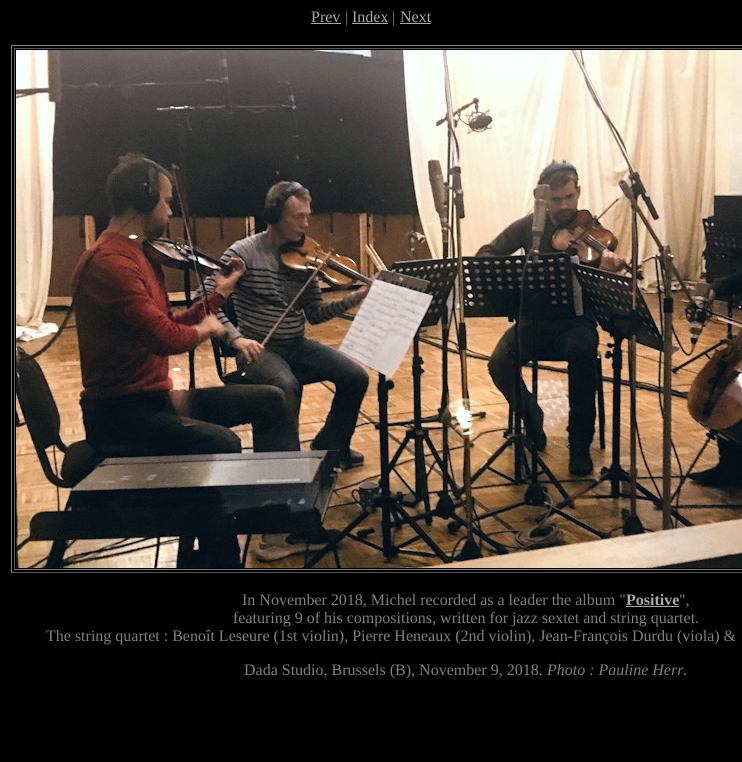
#include <cairo/cairo.h>
#include <math.h>
#include <stddef.h>


static void draw_image(cairo_t *cr, const char *path, double x, double y, double w, double h) {
  cairo_surface_t *image = cairo_image_surface_create_from_png(path);
  cairo_save(cr);
  cairo_set_source_surface(cr, image, x, y);
  cairo_rectangle(cr, x, y, w, h);
  cairo_fill(cr);
  cairo_restore(cr);
  cairo_surface_destroy(image);
}

static void draw(cairo_t *cr) {
  cairo_set_source_rgb(cr, 0, 0, 0);
  cairo_paint(cr);
  cairo_set_source_rgb(cr, 170 / 255.0, 170 / 255.0, 170 / 255.0);
  cairo_rectangle(cr, 311, 23, 30, 1);
  cairo_fill(cr);
  cairo_rectangle(cr, 352, 23, 36, 1);
  cairo_fill(cr);
  cairo_rectangle(cr, 400, 23, 31, 1);
  cairo_fill(cr);
  cairo_set_source_rgb(cr, 128 / 255.0, 128 / 255.0, 128 / 255.0);
  cairo_rectangle(cr, 11, 45, 731, 1);
  cairo_fill(cr);
  cairo_set_source_rgb(cr, 85 / 255.0, 85 / 255.0, 85 / 255.0);
  cairo_rectangle(cr, 11, 572, 731, 1);
  cairo_fill(cr);
  cairo_set_source_rgb(cr, 128 / 255.0, 128 / 255.0, 128 / 255.0);
  cairo_rectangle(cr, 11, 45, 1, 528);
  cairo_fill(cr);
  cairo_set_source_rgb(cr, 85 / 255.0, 85 / 255.0, 85 / 255.0);
  cairo_rectangle(cr, 14, 48, 728, 1);
  cairo_fill(cr);
  cairo_set_source_rgb(cr, 128 / 255.0, 128 / 255.0, 128 / 255.0);
  cairo_rectangle(cr, 14, 569, 728, 1);
  cairo_fill(cr);
  cairo_set_source_rgb(cr, 85 / 255.0, 85 / 255.0, 85 / 255.0);
  cairo_rectangle(cr, 14, 48, 1, 522);
  cairo_fill(cr);
  draw_image(cr, "images/1.png", 16, 50, 726, 518);
  cairo_set_source_rgb(cr, 170 / 255.0, 170 / 255.0, 170 / 255.0);
  cairo_rectangle(cr, 626, 606, 53, 1);
  cairo_fill(cr);
  cairo_select_font_face(cr, "Liberation Serif", CAIRO_FONT_SLANT_NORMAL, CAIRO_FONT_WEIGHT_NORMAL);
  cairo_set_font_size(cr, 16);
  cairo_move_to(cr, 311, 22);
  cairo_show_text(cr, "Prev");
  cairo_set_source_rgb(cr, 128 / 255.0, 128 / 255.0, 128 / 255.0);
  cairo_move_to(cr, 345, 22);
  cairo_show_text(cr, "|");
  cairo_set_source_rgb(cr, 170 / 255.0, 170 / 255.0, 170 / 255.0);
  cairo_move_to(cr, 352, 22);
  cairo_show_text(cr, "Index");
  cairo_set_source_rgb(cr, 128 / 255.0, 128 / 255.0, 128 / 255.0);
  cairo_move_to(cr, 392, 22);
  cairo_show_text(cr, "|");
  cairo_set_source_rgb(cr, 170 / 255.0, 170 / 255.0, 170 / 255.0);
  cairo_move_to(cr, 400, 22);
  cairo_show_text(cr, "Next");
  cairo_set_source_rgb(cr, 128 / 255.0, 128 / 255.0, 128 / 255.0);
  cairo_move_to(cr, 242, 605);
  cairo_show_text(cr, "In November 2018, Michel recorded as a leader the album \"");
  cairo_select_font_face(cr, "Liberation Serif", CAIRO_FONT_SLANT_NORMAL, CAIRO_FONT_WEIGHT_BOLD);
  cairo_set_source_rgb(cr, 170 / 255.0, 170 / 255.0, 170 / 255.0);
  cairo_move_to(cr, 626, 605);
  cairo_show_text(cr, "Positive");
  cairo_select_font_face(cr, "Liberation Serif", CAIRO_FONT_SLANT_NORMAL, CAIRO_FONT_WEIGHT_NORMAL);
  cairo_set_source_rgb(cr, 128 / 255.0, 128 / 255.0, 128 / 255.0);
  cairo_move_to(cr, 679, 605);
  cairo_show_text(cr, "\",");
  cairo_move_to(cr, 233, 623);
  cairo_show_text(cr, "featuring 9 of his compositions, written for jazz sextet and string quartet.");
  cairo_move_to(cr, 46, 641);
  cairo_show_text(cr, "The string quartet : Benoît Leseure (1st violin), Pierre Heneaux (2nd violin), Jean-François Durdu (viola) &");
  cairo_move_to(cr, 244, 675);
  cairo_show_text(cr, "Dada Studio, Brussels (B), November 9, 2018.");
  cairo_select_font_face(cr, "Liberation Serif", CAIRO_FONT_SLANT_ITALIC, CAIRO_FONT_WEIGHT_NORMAL);
  cairo_move_to(cr, 547, 675);
  cairo_show_text(cr, "Photo : Pauline Herr.");
}

int main(void) {
  cairo_surface_t *surface = cairo_image_surface_create(CAIRO_FORMAT_RGB24, 742, 762);
  cairo_t *cr = cairo_create(surface);
  cairo_font_options_t *options = cairo_font_options_create();
  cairo_font_options_set_hint_metrics(options, CAIRO_HINT_METRICS_OFF);
  cairo_font_options_set_hint_style(options, CAIRO_HINT_STYLE_NONE);
  cairo_set_font_options(cr, options);
  cairo_set_miter_limit(cr, 4);
  draw(cr);
  cairo_surface_write_to_png(surface, "out.png");
  cairo_font_options_destroy(options);
  cairo_destroy(cr);
  cairo_surface_destroy(surface);
  return 0;
}
